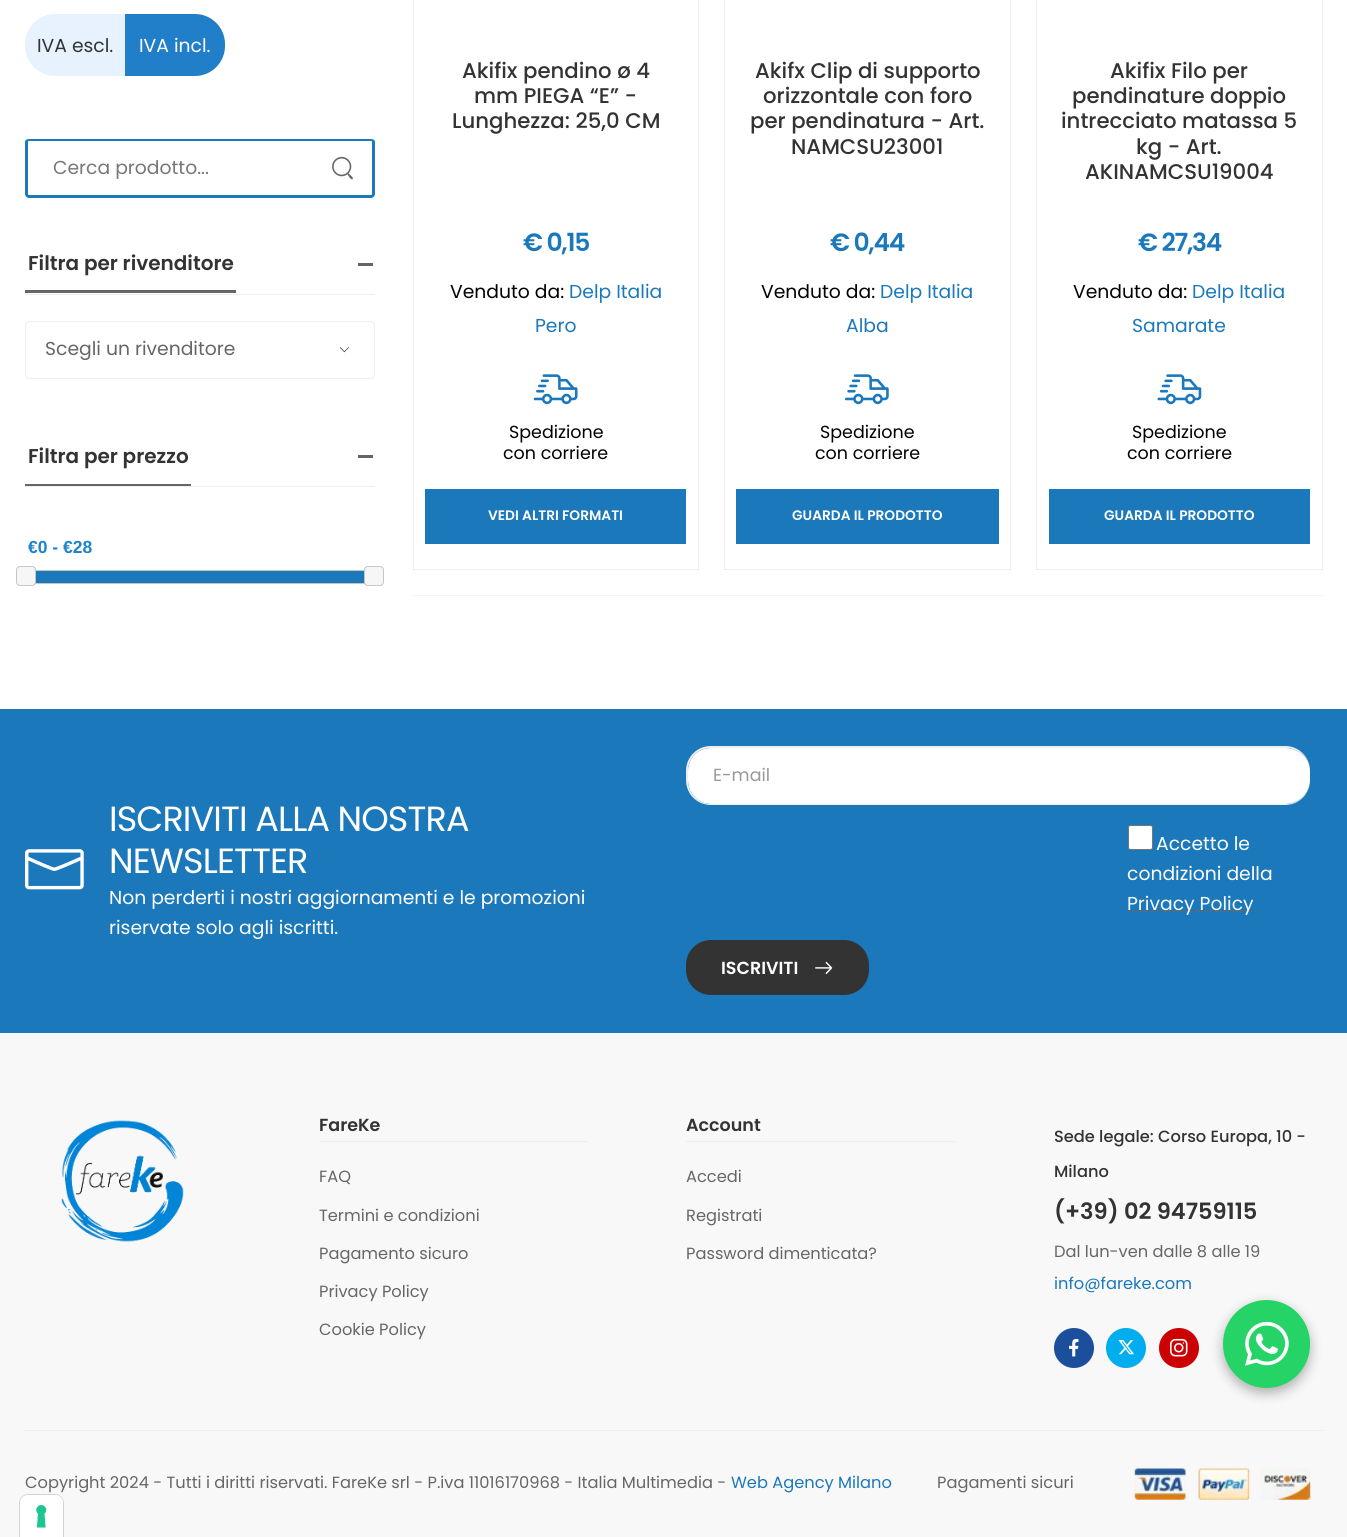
#include <cairo/cairo.h>
#include <math.h>
#include <stddef.h>


static void draw_spaced(cairo_t *cr, double x, double y, const char *s, double letter, double word) {
  cairo_move_to(cr, x, y);
  while (*s) {
    char ch[5] = {0};
    int n = 0;
    do ch[n++] = *s++; while ((*s & 0xC0) == 0x80);
    cairo_show_text(cr, ch);
    cairo_rel_move_to(cr, letter + word * (*ch == ' '), 0);
  }
}

static void rounded_rect(cairo_t *cr, double x, double y, double w, double h, double r) {
  cairo_new_sub_path(cr);
  cairo_arc(cr, x + w - r, y + h - r, r, 0, M_PI / 2);
  cairo_arc(cr, x + r, y + h - r, r, M_PI / 2, M_PI);
  cairo_arc(cr, x + r, y + r, r, M_PI, 1.5 * M_PI);
  cairo_arc(cr, x + w - r, y + r, r, 1.5 * M_PI, 2 * M_PI);
  cairo_close_path(cr);
}

static void draw_shadow(cairo_t *cr, double x, double y, double w, double h, double r, double blur, double alpha) {
  cairo_push_group_with_content(cr, CAIRO_CONTENT_ALPHA);
  cairo_set_operator(cr, CAIRO_OPERATOR_SOURCE);
  for (int i = 15; i >= -15 && fmin(w, h) + blur * i / 3 > 0; i -= 2) {
    double e = blur * i / 6;
    cairo_set_source_rgba(cr, 0, 0, 0, alpha * erfc((i - 1) / 8.5) / 2);
    rounded_rect(cr, x - e, y - e, w + 2 * e, h + 2 * e, fmax(0, fmin(r + e + blur * .6, fmin(w, h) / 2 + e)));
    cairo_fill(cr);
  }
  cairo_pattern_t *soft = cairo_pop_group(cr);
  cairo_mask(cr, soft);
  cairo_pattern_destroy(soft);
}

static void draw_image(cairo_t *cr, const char *path, double x, double y, double w, double h) {
  cairo_surface_t *image = cairo_image_surface_create_from_png(path);
  cairo_save(cr);
  cairo_set_source_surface(cr, image, x, y);
  cairo_rectangle(cr, x, y, w, h);
  cairo_fill(cr);
  cairo_restore(cr);
  cairo_surface_destroy(image);
}

static void draw(cairo_t *cr) {
  cairo_set_source_rgb(cr, 1, 1, 1);
  cairo_paint(cr);
  cairo_set_source_rgb(cr, 231 / 255.0, 242 / 255.0, 254 / 255.0);
  cairo_new_path(cr);
  cairo_move_to(cr, 55, 14);
  cairo_line_to(cr, 125, 14);
  cairo_line_to(cr, 125, 76);
  cairo_line_to(cr, 55, 76);
  cairo_curve_to(cr, 38.5, 76, 25, 62.5, 25, 46);
  cairo_line_to(cr, 25, 44);
  cairo_curve_to(cr, 25, 27.5, 38.5, 14, 55, 14);
  cairo_close_path(cr);
  cairo_fill(cr);
  cairo_set_source_rgb(cr, 33 / 255.0, 126 / 255.0, 200 / 255.0);
  cairo_new_path(cr);
  cairo_move_to(cr, 125, 14);
  cairo_line_to(cr, 195, 14);
  cairo_curve_to(cr, 211.5, 14, 225, 27.5, 225, 44);
  cairo_line_to(cr, 225, 46);
  cairo_curve_to(cr, 225, 62.5, 211.5, 76, 195, 76);
  cairo_line_to(cr, 125, 76);
  cairo_close_path(cr);
  cairo_fill(cr);
  cairo_set_source_rgb(cr, 27 / 255.0, 120 / 255.0, 187 / 255.0);
  cairo_set_fill_rule(cr, CAIRO_FILL_RULE_EVEN_ODD);
  cairo_new_path(cr);
  cairo_move_to(cr, 29, 139);
  cairo_line_to(cr, 312, 139);
  cairo_line_to(cr, 312, 198);
  cairo_line_to(cr, 29, 198);
  cairo_curve_to(cr, 27, 198, 25, 196, 25, 194);
  cairo_line_to(cr, 25, 142);
  cairo_curve_to(cr, 25, 140, 27, 139, 29, 139);
  cairo_close_path(cr);
  cairo_move_to(cr, 29, 141);
  cairo_line_to(cr, 312, 141);
  cairo_line_to(cr, 312, 195);
  cairo_line_to(cr, 29, 195);
  cairo_curve_to(cr, 28, 195, 28, 194, 28, 194);
  cairo_line_to(cr, 28, 142);
  cairo_curve_to(cr, 28, 142, 28, 141, 29, 141);
  cairo_close_path(cr);
  cairo_fill(cr);
  cairo_new_path(cr);
  cairo_move_to(cr, 312, 139);
  cairo_line_to(cr, 371, 139);
  cairo_curve_to(cr, 373, 139, 375, 140, 375, 142);
  cairo_line_to(cr, 375, 194);
  cairo_curve_to(cr, 375, 196, 373, 198, 371, 198);
  cairo_line_to(cr, 312, 198);
  cairo_close_path(cr);
  cairo_move_to(cr, 312, 141);
  cairo_line_to(cr, 371, 141);
  cairo_curve_to(cr, 372, 141, 372, 142, 372, 142);
  cairo_line_to(cr, 372, 194);
  cairo_curve_to(cr, 372, 194, 372, 195, 371, 195);
  cairo_line_to(cr, 312, 195);
  cairo_close_path(cr);
  cairo_fill(cr);
  draw_image(cr, "images/1.png", 332, 156, 21, 24);
  cairo_set_source_rgb(cr, 238 / 255.0, 238 / 255.0, 238 / 255.0);
  cairo_rectangle(cr, 25, 294, 350, 1);
  cairo_fill(cr);
  cairo_set_source_rgb(cr, 102 / 255.0, 102 / 255.0, 102 / 255.0);
  cairo_rectangle(cr, 25, 290, 211, 3);
  cairo_fill(cr);
  cairo_rectangle(cr, 358, 263, 15, 3);
  cairo_fill(cr);
  draw_image(cr, "images/2.png", 339, 347, 10, 6);
  rounded_rect(cr, 25.5, 321.5, 349, 57, 3.5);
  cairo_set_source_rgb(cr, 238 / 255.0, 238 / 255.0, 238 / 255.0);
  cairo_set_line_width(cr, 1);
  cairo_stroke(cr);
  cairo_rectangle(cr, 25, 486, 350, 1);
  cairo_fill(cr);
  cairo_set_source_rgb(cr, 102 / 255.0, 102 / 255.0, 102 / 255.0);
  cairo_rectangle(cr, 25, 484, 166, 2);
  cairo_fill(cr);
  cairo_rectangle(cr, 358, 455, 15, 3);
  cairo_fill(cr);
  cairo_rectangle(cr, 25.5, 570.5, 349, 13);
  cairo_set_source_rgb(cr, 197 / 255.0, 197 / 255.0, 197 / 255.0);
  cairo_stroke(cr);
  cairo_set_source_rgb(cr, 27 / 255.0, 120 / 255.0, 187 / 255.0);
  cairo_rectangle(cr, 35, 571, 330, 12);
  cairo_fill(cr);
  cairo_set_source_rgb(cr, 246 / 255.0, 246 / 255.0, 246 / 255.0);
  rounded_rect(cr, 16.5, 566.5, 19, 19, 3.5);
  cairo_fill_preserve(cr);
  cairo_set_source_rgb(cr, 197 / 255.0, 197 / 255.0, 197 / 255.0);
  cairo_stroke(cr);
  cairo_set_source_rgb(cr, 246 / 255.0, 246 / 255.0, 246 / 255.0);
  rounded_rect(cr, 364.5, 566.5, 19, 19, 3.5);
  cairo_fill_preserve(cr);
  cairo_set_source_rgb(cr, 197 / 255.0, 197 / 255.0, 197 / 255.0);
  cairo_stroke(cr);
  cairo_rectangle(cr, 413.5, -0.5, 285, 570);
  cairo_set_source_rgb(cr, 238 / 255.0, 238 / 255.0, 238 / 255.0);
  cairo_stroke(cr);
  draw_image(cr, "images/3.png", 533, 374, 45, 31);
  cairo_set_source_rgb(cr, 27 / 255.0, 120 / 255.0, 187 / 255.0);
  cairo_rectangle(cr, 425, 489, 261, 55);
  cairo_fill(cr);
  cairo_rectangle(cr, 724.5, -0.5, 286, 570);
  cairo_set_source_rgb(cr, 238 / 255.0, 238 / 255.0, 238 / 255.0);
  cairo_stroke(cr);
  draw_image(cr, "images/4.png", 845, 374, 44, 31);
  cairo_set_source_rgb(cr, 27 / 255.0, 120 / 255.0, 187 / 255.0);
  cairo_rectangle(cr, 736, 489, 263, 55);
  cairo_fill(cr);
  cairo_rectangle(cr, 1036.5, -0.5, 286, 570);
  cairo_set_source_rgb(cr, 238 / 255.0, 238 / 255.0, 238 / 255.0);
  cairo_stroke(cr);
  draw_image(cr, "images/5.png", 1157, 374, 45, 31);
  cairo_set_source_rgb(cr, 27 / 255.0, 120 / 255.0, 187 / 255.0);
  cairo_rectangle(cr, 1049, 489, 261, 55);
  cairo_fill(cr);
  cairo_set_source_rgb(cr, 244 / 255.0, 244 / 255.0, 244 / 255.0);
  cairo_rectangle(cr, 413, 595, 910, 1);
  cairo_fill(cr);
  cairo_set_source_rgb(cr, 248 / 255.0, 248 / 255.0, 248 / 255.0);
  cairo_rectangle(cr, 0, 1033, 1347, 504);
  cairo_fill(cr);
  cairo_set_source_rgb(cr, 27 / 255.0, 120 / 255.0, 187 / 255.0);
  cairo_rectangle(cr, 0, 709, 1347, 324);
  cairo_fill(cr);
  draw_image(cr, "images/6.png", 25, 849, 59, 41);
  cairo_set_source_rgb(cr, 1, 1, 1);
  cairo_set_fill_rule(cr, CAIRO_FILL_RULE_WINDING);
  cairo_new_path(cr);
  cairo_move_to(cr, 711, 748);
  cairo_line_to(cr, 1285, 748);
  cairo_curve_to(cr, 1299, 748, 1310, 758, 1310, 771);
  cairo_line_to(cr, 1310, 780);
  cairo_curve_to(cr, 1310, 793, 1299, 804, 1285, 804);
  cairo_line_to(cr, 711, 804);
  cairo_curve_to(cr, 698, 804, 688, 793, 688, 780);
  cairo_line_to(cr, 688, 771);
  cairo_curve_to(cr, 688, 758, 698, 748, 711, 748);
  cairo_close_path(cr);
  cairo_fill(cr);
  cairo_set_source_rgb(cr, 238 / 255.0, 238 / 255.0, 238 / 255.0);
  cairo_set_fill_rule(cr, CAIRO_FILL_RULE_EVEN_ODD);
  cairo_new_path(cr);
  cairo_move_to(cr, 711, 746);
  cairo_line_to(cr, 1285, 746);
  cairo_curve_to(cr, 1299, 746, 1310, 757, 1310, 771);
  cairo_line_to(cr, 1310, 780);
  cairo_curve_to(cr, 1310, 794, 1299, 805, 1285, 805);
  cairo_line_to(cr, 711, 805);
  cairo_curve_to(cr, 697, 805, 686, 794, 686, 780);
  cairo_line_to(cr, 686, 771);
  cairo_curve_to(cr, 686, 757, 697, 746, 711, 746);
  cairo_close_path(cr);
  cairo_move_to(cr, 711, 748);
  cairo_line_to(cr, 1285, 748);
  cairo_curve_to(cr, 1299, 748, 1310, 758, 1310, 771);
  cairo_line_to(cr, 1310, 780);
  cairo_curve_to(cr, 1310, 793, 1299, 804, 1285, 804);
  cairo_line_to(cr, 711, 804);
  cairo_curve_to(cr, 698, 804, 688, 793, 688, 780);
  cairo_line_to(cr, 688, 771);
  cairo_curve_to(cr, 688, 758, 698, 748, 711, 748);
  cairo_close_path(cr);
  cairo_fill(cr);
  cairo_set_source_rgb(cr, 1, 1, 1);
  rounded_rect(cr, 1128.5, 825.5, 24, 24, 2);
  cairo_fill_preserve(cr);
  cairo_set_source_rgb(cr, 118 / 255.0, 118 / 255.0, 118 / 255.0);
  cairo_stroke(cr);
  cairo_set_source_rgb(cr, 102 / 255.0, 102 / 255.0, 102 / 255.0);
  cairo_rectangle(cr, 1128, 911, 126, 1);
  cairo_fill(cr);
  cairo_set_source_rgb(cr, 51 / 255.0, 51 / 255.0, 51 / 255.0);
  rounded_rect(cr, 687.5, 941.5, 180, 52, 23.5);
  cairo_fill_preserve(cr);
  cairo_set_line_width(cr, 3);
  cairo_stroke(cr);
  draw_image(cr, "images/7.png", 815, 961, 18, 13);
  cairo_set_source_rgb(cr, 238 / 255.0, 238 / 255.0, 238 / 255.0);
  cairo_rectangle(cr, 25, 1430, 1298, 1);
  cairo_fill(cr);
  draw_image(cr, "images/8.png", 61, 1120, 123, 122);
  cairo_rectangle(cr, 319, 1141, 269, 1);
  cairo_fill(cr);
  cairo_rectangle(cr, 686, 1141, 269, 1);
  cairo_fill(cr);
  cairo_set_source_rgb(cr, 27 / 255.0, 79 / 255.0, 155 / 255.0);
  cairo_arc(cr, 1074, 1348, 18.5, 0, 2 * M_PI);
  cairo_fill_preserve(cr);
  cairo_stroke(cr);
  draw_image(cr, "images/9.png", 1069, 1338, 10, 19);
  cairo_set_source_rgb(cr, 0, 173 / 255.0, 239 / 255.0);
  cairo_arc(cr, 1126, 1348, 18.5, 0, 2 * M_PI);
  cairo_fill_preserve(cr);
  cairo_stroke(cr);
  draw_image(cr, "images/10.png", 1118, 1340, 16, 15);
  cairo_set_source_rgb(cr, 204 / 255.0, 0, 1 / 255.0);
  cairo_arc(cr, 1179, 1348, 18.5, 0, 2 * M_PI);
  cairo_fill_preserve(cr);
  cairo_stroke(cr);
  draw_image(cr, "images/11.png", 1170, 1338, 18, 19);
  draw_image(cr, "images/12.png", 1134, 1468, 177, 32);
  cairo_set_source_rgb(cr, 0, 0, 0);
  draw_shadow(cr, 1223, 1305, 87, 88, 43.5, 6, 0.3);
  cairo_set_source_rgb(cr, 37 / 255.0, 211 / 255.0, 102 / 255.0);
  rounded_rect(cr, 1223, 1300, 87, 88, 43.5);
  cairo_fill(cr);
  draw_image(cr, "images/13.png", 1245, 1321, 44, 45);
  cairo_new_path(cr);
  cairo_move_to(cr, 28, 1494.5);
  cairo_line_to(cr, 55, 1494.5);
  cairo_curve_to(cr, 59.5, 1494.5, 63.5, 1498.5, 63.5, 1503);
  cairo_line_to(cr, 63.5, 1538.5);
  cairo_line_to(cr, 19.5, 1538.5);
  cairo_line_to(cr, 19.5, 1503);
  cairo_curve_to(cr, 19.5, 1498.5, 23.5, 1494.5, 28, 1494.5);
  cairo_close_path(cr);
  cairo_set_source_rgb(cr, 211 / 255.0, 211 / 255.0, 211 / 255.0);
  cairo_set_line_width(cr, 1);
  cairo_stroke(cr);
  cairo_set_source_rgb(cr, 1, 1, 1);
  cairo_new_path(cr);
  cairo_move_to(cr, 28, 1495);
  cairo_line_to(cr, 55, 1495);
  cairo_curve_to(cr, 59.5, 1495, 63, 1498.5, 63, 1503);
  cairo_line_to(cr, 63, 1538);
  cairo_line_to(cr, 20, 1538);
  cairo_line_to(cr, 20, 1503);
  cairo_curve_to(cr, 20, 1498.5, 23.5, 1495, 28, 1495);
  cairo_close_path(cr);
  cairo_fill(cr);
  draw_image(cr, "images/14.png", 36, 1505, 11, 23);
  cairo_select_font_face(cr, "Poppins", CAIRO_FONT_SLANT_NORMAL, CAIRO_FONT_WEIGHT_NORMAL);
  cairo_set_font_size(cr, 18.75);
  cairo_set_source_rgb(cr, 51 / 255.0, 51 / 255.0, 51 / 255.0);
  cairo_move_to(cr, 37, 52);
  cairo_show_text(cr, "IVA escl.");
  cairo_set_source_rgb(cr, 1, 1, 1);
  cairo_move_to(cr, 139, 52);
  cairo_show_text(cr, "IVA incl.");
  cairo_set_source_rgb(cr, 119 / 255.0, 119 / 255.0, 119 / 255.0);
  cairo_move_to(cr, 53, 174);
  cairo_show_text(cr, "Cerca prodotto...");
  cairo_select_font_face(cr, "Poppins SemiBold", CAIRO_FONT_SLANT_NORMAL, CAIRO_FONT_WEIGHT_NORMAL);
  cairo_set_font_size(cr, 20);
  cairo_set_source_rgb(cr, 51 / 255.0, 51 / 255.0, 51 / 255.0);
  cairo_move_to(cr, 28, 270);
  cairo_show_text(cr, "Filtra per rivenditore");
  cairo_select_font_face(cr, "Poppins", CAIRO_FONT_SLANT_NORMAL, CAIRO_FONT_WEIGHT_NORMAL);
  cairo_set_font_size(cr, 18.75);
  cairo_set_source_rgb(cr, 102 / 255.0, 102 / 255.0, 102 / 255.0);
  cairo_move_to(cr, 45, 355);
  cairo_show_text(cr, "Scegli un rivenditore");
  cairo_select_font_face(cr, "Poppins SemiBold", CAIRO_FONT_SLANT_NORMAL, CAIRO_FONT_WEIGHT_NORMAL);
  cairo_set_font_size(cr, 20);
  cairo_set_source_rgb(cr, 51 / 255.0, 51 / 255.0, 51 / 255.0);
  cairo_move_to(cr, 28, 463);
  cairo_show_text(cr, "Filtra per prezzo");
  cairo_save(cr);
  cairo_set_fill_rule(cr, CAIRO_FILL_RULE_WINDING);
  cairo_rectangle(cr, 28, 538, 245, 20);
  cairo_clip(cr);
  cairo_select_font_face(cr, "Liberation Sans", CAIRO_FONT_SLANT_NORMAL, CAIRO_FONT_WEIGHT_BOLD);
  cairo_set_font_size(cr, 17.5);
  cairo_set_source_rgb(cr, 31 / 255.0, 131 / 255.0, 204 / 255.0);
  cairo_move_to(cr, 28, 553);
  cairo_show_text(cr, "€0 - €28");
  cairo_restore(cr);
  cairo_select_font_face(cr, "Poppins Medium", CAIRO_FONT_SLANT_NORMAL, CAIRO_FONT_WEIGHT_NORMAL);
  cairo_set_font_size(cr, 21.25);
  cairo_move_to(cr, 462, 78);
  cairo_show_text(cr, "Akifix pendino ø 4");
  cairo_move_to(cr, 474, 103);
  cairo_show_text(cr, "mm PIEGA “E” -");
  cairo_move_to(cr, 452, 128);
  cairo_show_text(cr, "Lunghezza: 25,0 CM");
  cairo_select_font_face(cr, "Poppins SemiBold", CAIRO_FONT_SLANT_NORMAL, CAIRO_FONT_WEIGHT_NORMAL);
  cairo_set_font_size(cr, 25);
  cairo_set_source_rgb(cr, 27 / 255.0, 120 / 255.0, 187 / 255.0);
  draw_spaced(cr, 523, 251, "€ 0,15", -1.25, 0);
  cairo_select_font_face(cr, "Poppins", CAIRO_FONT_SLANT_NORMAL, CAIRO_FONT_WEIGHT_NORMAL);
  cairo_set_font_size(cr, 18.75);
  cairo_set_source_rgb(cr, 2 / 255.0, 1 / 255.0, 1 / 255.0);
  cairo_move_to(cr, 450, 298);
  cairo_show_text(cr, "Venduto da:");
  cairo_set_source_rgb(cr, 27 / 255.0, 120 / 255.0, 187 / 255.0);
  cairo_move_to(cr, 569, 298);
  cairo_show_text(cr, "Delp Italia");
  cairo_move_to(cr, 535, 332);
  cairo_show_text(cr, "Pero");
  cairo_set_font_size(cr, 17.5);
  cairo_set_source_rgb(cr, 2 / 255.0, 1 / 255.0, 1 / 255.0);
  cairo_move_to(cr, 509, 438);
  cairo_show_text(cr, "Spedizione");
  cairo_move_to(cr, 503, 459);
  cairo_show_text(cr, "con corriere");
  cairo_select_font_face(cr, "Poppins SemiBold", CAIRO_FONT_SLANT_NORMAL, CAIRO_FONT_WEIGHT_NORMAL);
  cairo_set_font_size(cr, 13.75);
  cairo_set_source_rgb(cr, 1, 1, 1);
  cairo_move_to(cr, 488, 520);
  cairo_show_text(cr, "VEDI ALTRI FORMATI");
  cairo_select_font_face(cr, "Poppins Medium", CAIRO_FONT_SLANT_NORMAL, CAIRO_FONT_WEIGHT_NORMAL);
  cairo_set_font_size(cr, 21.25);
  cairo_set_source_rgb(cr, 51 / 255.0, 51 / 255.0, 51 / 255.0);
  cairo_move_to(cr, 755, 78);
  cairo_show_text(cr, "Akifx Clip di supporto");
  cairo_move_to(cr, 763, 103);
  cairo_show_text(cr, "orizzontale con foro");
  cairo_move_to(cr, 750, 128);
  cairo_show_text(cr, "per pendinatura - Art.");
  cairo_move_to(cr, 791, 154);
  cairo_show_text(cr, "NAMCSU23001");
  cairo_select_font_face(cr, "Poppins SemiBold", CAIRO_FONT_SLANT_NORMAL, CAIRO_FONT_WEIGHT_NORMAL);
  cairo_set_font_size(cr, 25);
  cairo_set_source_rgb(cr, 27 / 255.0, 120 / 255.0, 187 / 255.0);
  draw_spaced(cr, 830, 251, "€ 0,44", -1.25, 0);
  cairo_select_font_face(cr, "Poppins", CAIRO_FONT_SLANT_NORMAL, CAIRO_FONT_WEIGHT_NORMAL);
  cairo_set_font_size(cr, 18.75);
  cairo_set_source_rgb(cr, 2 / 255.0, 1 / 255.0, 1 / 255.0);
  cairo_move_to(cr, 761, 298);
  cairo_show_text(cr, "Venduto da:");
  cairo_set_source_rgb(cr, 27 / 255.0, 120 / 255.0, 187 / 255.0);
  cairo_move_to(cr, 880, 298);
  cairo_show_text(cr, "Delp Italia");
  cairo_move_to(cr, 846, 332);
  cairo_show_text(cr, "Alba");
  cairo_set_font_size(cr, 17.5);
  cairo_set_source_rgb(cr, 2 / 255.0, 1 / 255.0, 1 / 255.0);
  cairo_move_to(cr, 820, 438);
  cairo_show_text(cr, "Spedizione");
  cairo_move_to(cr, 815, 459);
  cairo_show_text(cr, "con corriere");
  cairo_select_font_face(cr, "Poppins SemiBold", CAIRO_FONT_SLANT_NORMAL, CAIRO_FONT_WEIGHT_NORMAL);
  cairo_set_font_size(cr, 13.75);
  cairo_set_source_rgb(cr, 1, 1, 1);
  cairo_move_to(cr, 792, 520);
  cairo_show_text(cr, "GUARDA IL PRODOTTO");
  cairo_select_font_face(cr, "Poppins Medium", CAIRO_FONT_SLANT_NORMAL, CAIRO_FONT_WEIGHT_NORMAL);
  cairo_set_font_size(cr, 21.25);
  cairo_set_source_rgb(cr, 51 / 255.0, 51 / 255.0, 51 / 255.0);
  cairo_move_to(cr, 1110, 78);
  cairo_show_text(cr, "Akifix Filo per");
  cairo_move_to(cr, 1072, 103);
  cairo_show_text(cr, "pendinature doppio");
  cairo_move_to(cr, 1061, 128);
  cairo_show_text(cr, "intrecciato matassa 5");
  cairo_move_to(cr, 1136, 154);
  cairo_show_text(cr, "kg - Art.");
  cairo_move_to(cr, 1085, 179);
  cairo_show_text(cr, "AKINAMCSU19004");
  cairo_select_font_face(cr, "Poppins SemiBold", CAIRO_FONT_SLANT_NORMAL, CAIRO_FONT_WEIGHT_NORMAL);
  cairo_set_font_size(cr, 25);
  cairo_set_source_rgb(cr, 27 / 255.0, 120 / 255.0, 187 / 255.0);
  draw_spaced(cr, 1138, 251, "€ 27,34", -1.25, 0);
  cairo_select_font_face(cr, "Poppins", CAIRO_FONT_SLANT_NORMAL, CAIRO_FONT_WEIGHT_NORMAL);
  cairo_set_font_size(cr, 18.75);
  cairo_set_source_rgb(cr, 2 / 255.0, 1 / 255.0, 1 / 255.0);
  cairo_move_to(cr, 1073, 298);
  cairo_show_text(cr, "Venduto da:");
  cairo_set_source_rgb(cr, 27 / 255.0, 120 / 255.0, 187 / 255.0);
  cairo_move_to(cr, 1192, 298);
  cairo_show_text(cr, "Delp Italia");
  cairo_move_to(cr, 1132, 332);
  cairo_show_text(cr, "Samarate");
  cairo_set_font_size(cr, 17.5);
  cairo_set_source_rgb(cr, 2 / 255.0, 1 / 255.0, 1 / 255.0);
  cairo_move_to(cr, 1132, 438);
  cairo_show_text(cr, "Spedizione");
  cairo_move_to(cr, 1127, 459);
  cairo_show_text(cr, "con corriere");
  cairo_select_font_face(cr, "Poppins SemiBold", CAIRO_FONT_SLANT_NORMAL, CAIRO_FONT_WEIGHT_NORMAL);
  cairo_set_font_size(cr, 13.75);
  cairo_set_source_rgb(cr, 1, 1, 1);
  cairo_move_to(cr, 1104, 520);
  cairo_show_text(cr, "GUARDA IL PRODOTTO");
  cairo_select_font_face(cr, "Poppins", CAIRO_FONT_SLANT_NORMAL, CAIRO_FONT_WEIGHT_NORMAL);
  cairo_set_font_size(cr, 35);
  draw_spaced(cr, 109, 831, "ISCRIVITI ALLA NOSTRA", -0.9, 0);
  draw_spaced(cr, 109, 873, "NEWSLETTER", -0.9, 0);
  cairo_set_font_size(cr, 18.75);
  cairo_move_to(cr, 109, 904);
  cairo_show_text(cr, "Non perderti i nostri aggiornamenti e le promozioni");
  cairo_move_to(cr, 109, 934);
  cairo_show_text(cr, "riservate solo agli iscritti.");
  cairo_set_font_size(cr, 17.5);
  cairo_set_source_rgb(cr, 153 / 255.0, 153 / 255.0, 153 / 255.0);
  cairo_move_to(cr, 713, 781);
  cairo_show_text(cr, "E-mail");
  cairo_set_font_size(cr, 18.75);
  cairo_set_source_rgb(cr, 1, 1, 1);
  cairo_move_to(cr, 1156, 850);
  cairo_show_text(cr, "Accetto le");
  cairo_move_to(cr, 1127, 880);
  cairo_show_text(cr, "condizioni della");
  cairo_set_source_rgb(cr, 249 / 255.0, 249 / 255.0, 249 / 255.0);
  cairo_move_to(cr, 1127, 910);
  cairo_show_text(cr, "Privacy Policy");
  cairo_select_font_face(cr, "Poppins SemiBold", CAIRO_FONT_SLANT_NORMAL, CAIRO_FONT_WEIGHT_NORMAL);
  cairo_set_font_size(cr, 17.5);
  cairo_set_source_rgb(cr, 1, 1, 1);
  cairo_move_to(cr, 721, 974);
  cairo_show_text(cr, "ISCRIVITI");
  cairo_set_source_rgb(cr, 51 / 255.0, 51 / 255.0, 51 / 255.0);
  cairo_move_to(cr, 319, 1131);
  cairo_show_text(cr, "FareKe");
  cairo_select_font_face(cr, "Poppins", CAIRO_FONT_SLANT_NORMAL, CAIRO_FONT_WEIGHT_NORMAL);
  cairo_set_font_size(cr, 16.25);
  cairo_set_source_rgb(cr, 102 / 255.0, 102 / 255.0, 102 / 255.0);
  cairo_move_to(cr, 319, 1182);
  cairo_show_text(cr, "FAQ");
  cairo_move_to(cr, 319, 1221);
  cairo_show_text(cr, "Termini e condizioni");
  cairo_move_to(cr, 319, 1259);
  cairo_show_text(cr, "Pagamento sicuro");
  cairo_move_to(cr, 319, 1297);
  cairo_show_text(cr, "Privacy Policy");
  cairo_move_to(cr, 319, 1335);
  cairo_show_text(cr, "Cookie Policy");
  cairo_select_font_face(cr, "Poppins SemiBold", CAIRO_FONT_SLANT_NORMAL, CAIRO_FONT_WEIGHT_NORMAL);
  cairo_set_font_size(cr, 17.5);
  cairo_set_source_rgb(cr, 51 / 255.0, 51 / 255.0, 51 / 255.0);
  cairo_move_to(cr, 686, 1131);
  cairo_show_text(cr, "Account");
  cairo_select_font_face(cr, "Poppins", CAIRO_FONT_SLANT_NORMAL, CAIRO_FONT_WEIGHT_NORMAL);
  cairo_set_font_size(cr, 16.25);
  cairo_set_source_rgb(cr, 102 / 255.0, 102 / 255.0, 102 / 255.0);
  cairo_move_to(cr, 686, 1182);
  cairo_show_text(cr, "Accedi");
  cairo_move_to(cr, 686, 1221);
  cairo_show_text(cr, "Registrati");
  cairo_move_to(cr, 686, 1259);
  cairo_show_text(cr, "Password dimenticata?");
  cairo_select_font_face(cr, "Poppins Medium", CAIRO_FONT_SLANT_NORMAL, CAIRO_FONT_WEIGHT_NORMAL);
  cairo_set_source_rgb(cr, 51 / 255.0, 51 / 255.0, 51 / 255.0);
  cairo_move_to(cr, 1054, 1142);
  cairo_show_text(cr, "Sede legale: Corso Europa, 10 -");
  cairo_move_to(cr, 1054, 1177);
  cairo_show_text(cr, "Milano");
  cairo_select_font_face(cr, "Poppins SemiBold", CAIRO_FONT_SLANT_NORMAL, CAIRO_FONT_WEIGHT_NORMAL);
  cairo_set_font_size(cr, 22.5);
  cairo_move_to(cr, 1054, 1219);
  cairo_show_text(cr, "(+39) 02 94759115");
  cairo_select_font_face(cr, "Poppins", CAIRO_FONT_SLANT_NORMAL, CAIRO_FONT_WEIGHT_NORMAL);
  cairo_set_font_size(cr, 16.25);
  cairo_set_source_rgb(cr, 102 / 255.0, 102 / 255.0, 102 / 255.0);
  cairo_move_to(cr, 1054, 1257);
  cairo_show_text(cr, "Dal lun-ven dalle 8 alle 19");
  cairo_set_source_rgb(cr, 27 / 255.0, 120 / 255.0, 187 / 255.0);
  cairo_move_to(cr, 1054, 1289);
  cairo_show_text(cr, "info@fareke.com");
  cairo_set_source_rgb(cr, 102 / 255.0, 102 / 255.0, 102 / 255.0);
  cairo_move_to(cr, 25, 1488);
  cairo_show_text(cr, "Copyright 2024 - Tutti i diritti riservati. FareKe srl - P.iva 11016170968 - Italia Multimedia -");
  cairo_set_source_rgb(cr, 27 / 255.0, 120 / 255.0, 187 / 255.0);
  cairo_move_to(cr, 731, 1488);
  cairo_show_text(cr, "Web Agency Milano");
  cairo_set_source_rgb(cr, 102 / 255.0, 102 / 255.0, 102 / 255.0);
  cairo_move_to(cr, 937, 1488);
  cairo_show_text(cr, "Pagamenti sicuri");
}

int main(void) {
  cairo_surface_t *surface = cairo_image_surface_create(CAIRO_FORMAT_RGB24, 1347, 1537);
  cairo_t *cr = cairo_create(surface);
  cairo_font_options_t *options = cairo_font_options_create();
  cairo_font_options_set_hint_metrics(options, CAIRO_HINT_METRICS_OFF);
  cairo_font_options_set_hint_style(options, CAIRO_HINT_STYLE_NONE);
  cairo_set_font_options(cr, options);
  cairo_set_miter_limit(cr, 4);
  draw(cr);
  cairo_surface_write_to_png(surface, "out.png");
  cairo_font_options_destroy(options);
  cairo_destroy(cr);
  cairo_surface_destroy(surface);
  return 0;
}
